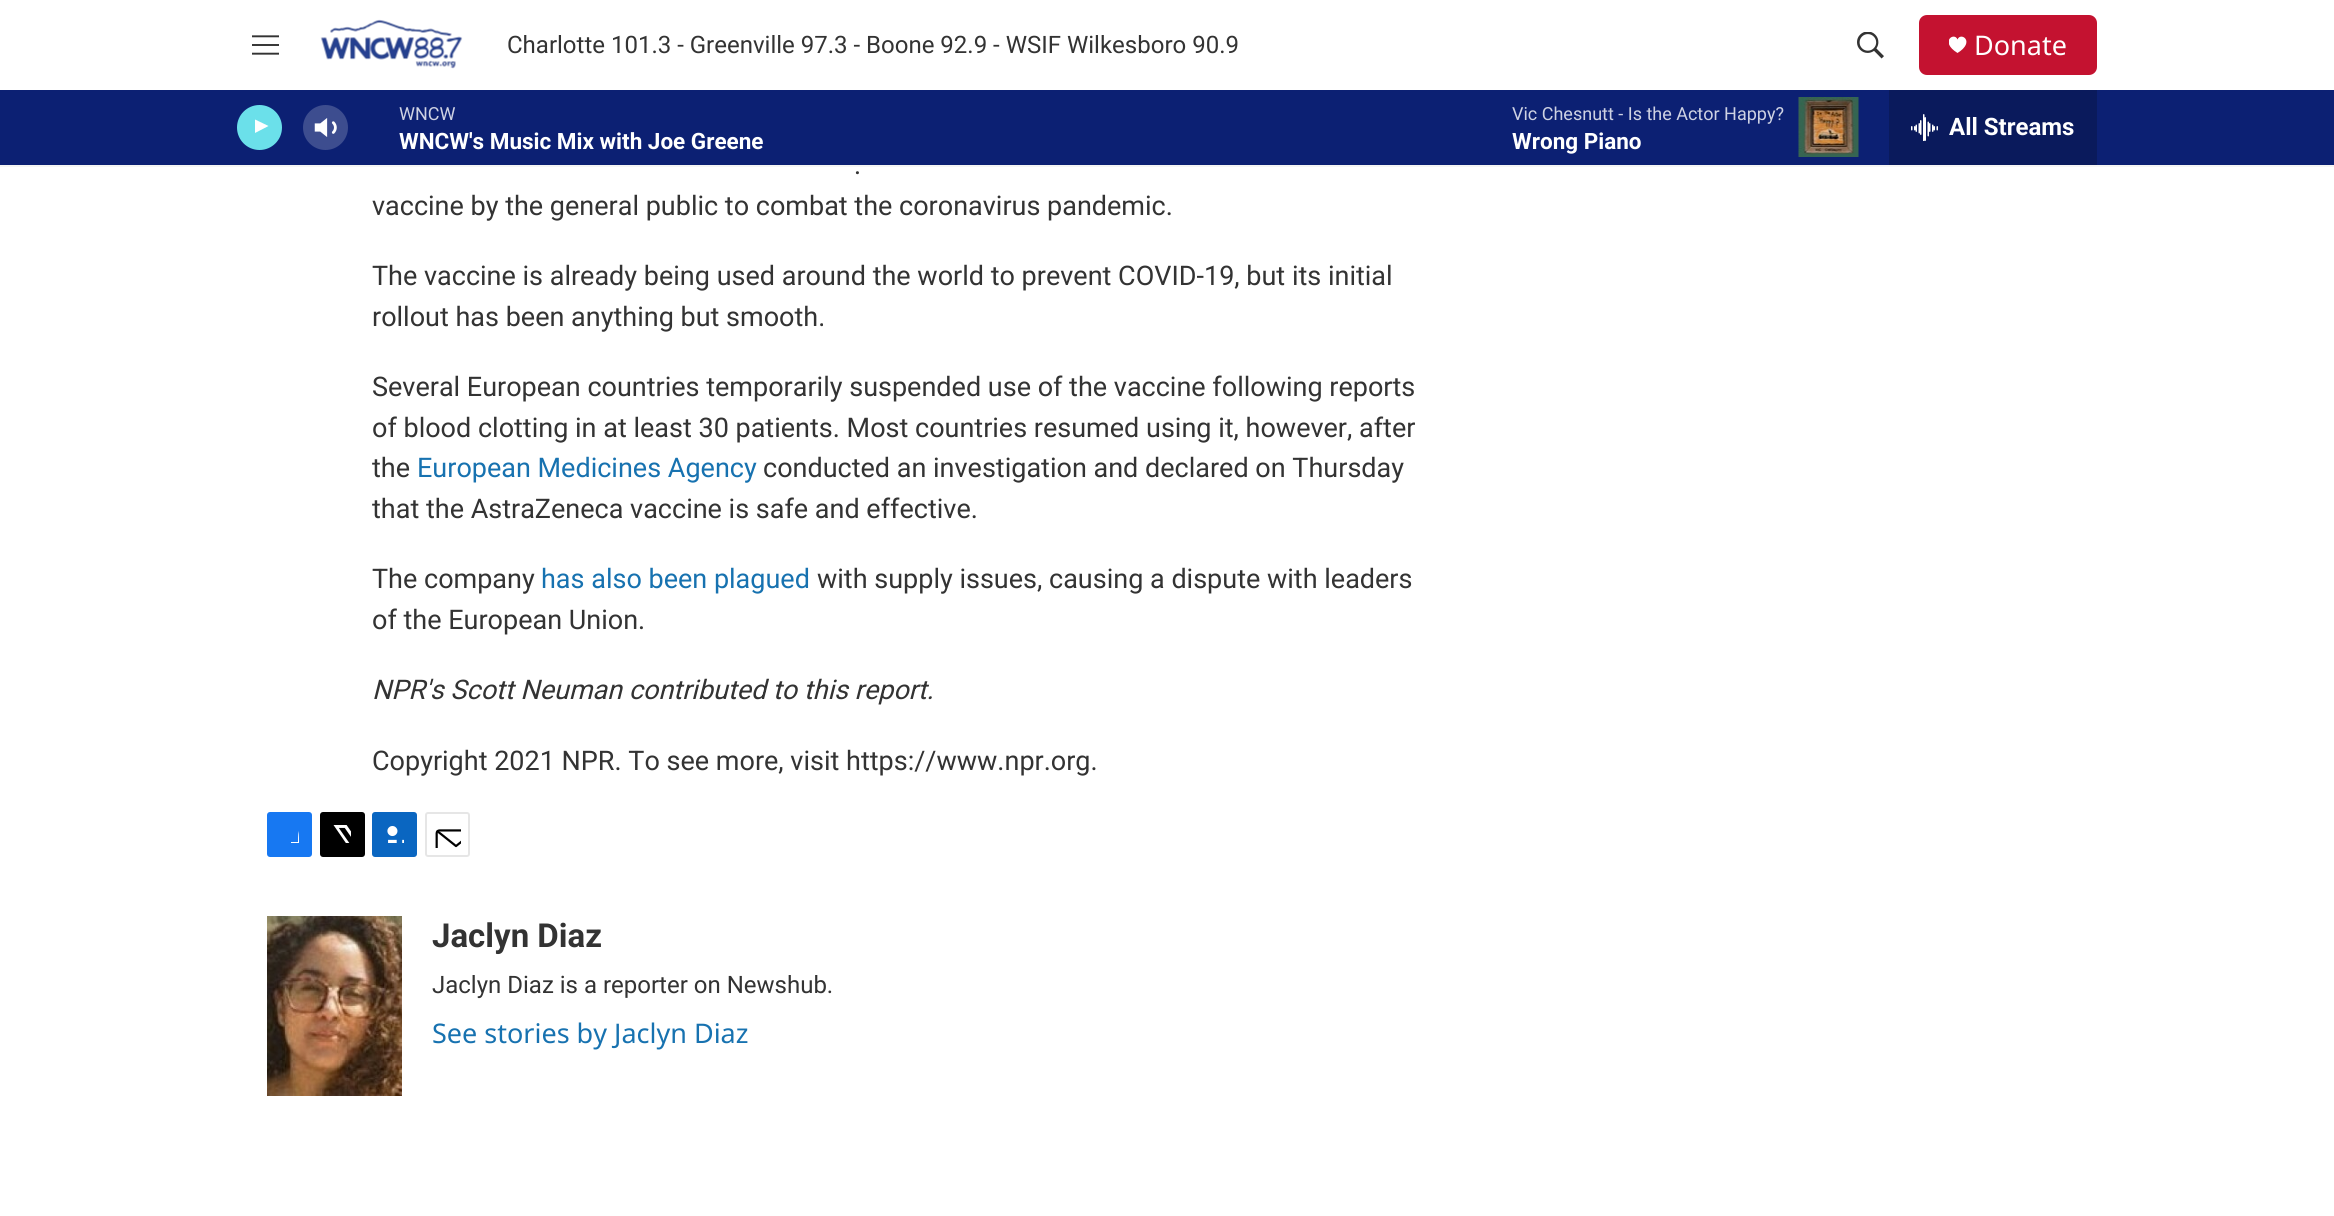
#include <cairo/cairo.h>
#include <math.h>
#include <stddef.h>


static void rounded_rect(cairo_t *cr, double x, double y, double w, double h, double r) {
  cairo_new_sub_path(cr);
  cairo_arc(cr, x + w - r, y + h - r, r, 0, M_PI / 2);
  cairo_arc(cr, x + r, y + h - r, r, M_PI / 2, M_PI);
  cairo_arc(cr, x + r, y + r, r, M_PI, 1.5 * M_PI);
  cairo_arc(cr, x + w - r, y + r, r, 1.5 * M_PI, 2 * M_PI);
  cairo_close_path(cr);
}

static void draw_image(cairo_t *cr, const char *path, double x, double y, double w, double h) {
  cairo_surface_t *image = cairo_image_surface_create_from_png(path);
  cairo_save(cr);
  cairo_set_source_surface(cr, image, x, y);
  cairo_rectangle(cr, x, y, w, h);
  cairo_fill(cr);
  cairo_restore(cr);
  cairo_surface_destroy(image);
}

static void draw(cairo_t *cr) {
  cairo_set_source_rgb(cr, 1, 1, 1);
  cairo_paint(cr);
  cairo_set_source_rgb(cr, 245 / 255.0, 245 / 255.0, 245 / 255.0);
  cairo_rectangle(cr, 0, 165, 2334, 2);
  cairo_fill(cr);
  draw_image(cr, "images/1.png", 252, 35, 27, 20);
  draw_image(cr, "images/2.png", 320, 19, 143, 50);
  draw_image(cr, "images/3.png", 1857, 32, 27, 27);
  cairo_set_source_rgb(cr, 196 / 255.0, 18 / 255.0, 48 / 255.0);
  rounded_rect(cr, 1919, 15, 178, 60, 8);
  cairo_fill(cr);
  cairo_save(cr);
  cairo_rectangle(cr, 1949, 36, 18, 18);
  cairo_clip(cr);
  cairo_set_source_rgb(cr, 1, 1, 1);
  cairo_new_path(cr);
  cairo_move_to(cr, 1957.5, 39.5);
  cairo_curve_to(cr, 1954.5, 31.5, 1939, 41.5, 1957.5, 53);
  cairo_curve_to(cr, 1976, 41.5, 1960.5, 31.5, 1957.5, 39.5);
  cairo_close_path(cr);
  cairo_fill(cr);
  cairo_restore(cr);
  cairo_set_source_rgb(cr, 12 / 255.0, 32 / 255.0, 115 / 255.0);
  cairo_rectangle(cr, 0, 90, 2334, 75);
  cairo_fill(cr);
  cairo_set_source_rgb(cr, 107 / 255.0, 224 / 255.0, 234 / 255.0);
  cairo_arc(cr, 259.5, 127.5, 22.5, 0, 2 * M_PI);
  cairo_fill(cr);
  cairo_save(cr);
  cairo_rectangle(cr, 255, 117, 17, 23);
  cairo_clip(cr);
  cairo_set_source_rgb(cr, 1, 1, 1);
  cairo_new_path(cr);
  cairo_move_to(cr, 254, 119);
  cairo_line_to(cr, 268.5, 126);
  cairo_line_to(cr, 254, 133.5);
  cairo_close_path(cr);
  cairo_fill(cr);
  cairo_restore(cr);
  draw_image(cr, "images/4.png", 314, 118, 23, 19);
  cairo_set_source_rgba(cr, 1, 1, 1, 0.2);
  cairo_arc(cr, 325.5, 127.5, 22.5, 0, 2 * M_PI);
  cairo_fill(cr);
  draw_image(cr, "images/5.png", 1798, 97, 61, 60);
  cairo_set_source_rgb(cr, 10 / 255.0, 26 / 255.0, 92 / 255.0);
  cairo_rectangle(cr, 1889, 90, 208, 75);
  cairo_fill(cr);
  draw_image(cr, "images/6.png", 1911, 114, 27, 27);
  cairo_set_source_rgb(cr, 23 / 255.0, 120 / 255.0, 242 / 255.0);
  rounded_rect(cr, 267, 812, 45, 45, 3);
  cairo_fill(cr);
  cairo_save(cr);
  cairo_rectangle(cr, 281, 825, 18, 18);
  cairo_clip(cr);
  cairo_set_source_rgb(cr, 1, 1, 1);
  cairo_new_path(cr);
  cairo_move_to(cr, 305, 857);
  cairo_line_to(cr, 298, 857);
  cairo_line_to(cr, 298, 849);
  cairo_line_to(cr, 291, 849);
  cairo_line_to(cr, 291, 842);
  cairo_line_to(cr, 298, 842);
  cairo_curve_to(cr, 298, 829.5, 299, 824, 312, 826);
  cairo_line_to(cr, 312, 833);
  cairo_curve_to(cr, 303.5, 833, 305, 834.5, 305, 842);
  cairo_line_to(cr, 312, 842);
  cairo_line_to(cr, 311, 849);
  cairo_line_to(cr, 305, 849);
  cairo_close_path(cr);
  cairo_fill(cr);
  cairo_restore(cr);
  cairo_set_source_rgb(cr, 0, 0, 0);
  rounded_rect(cr, 320, 812, 45, 45, 3);
  cairo_fill(cr);
  draw_image(cr, "images/7.png", 333, 825, 18, 18);
  cairo_set_source_rgb(cr, 10 / 255.0, 102 / 255.0, 193 / 255.0);
  rounded_rect(cr, 372, 812, 45, 45, 3);
  cairo_fill(cr);
  draw_image(cr, "images/8.png", 387, 826, 17, 17);
  rounded_rect(cr, 426, 813, 43, 43, 2);
  cairo_set_source_rgb(cr, 230 / 255.0, 230 / 255.0, 230 / 255.0);
  cairo_stroke(cr);
  draw_image(cr, "images/9.png", 435, 829, 26, 19);
  draw_image(cr, "images/10.png", 267, 916, 135, 180);
  cairo_select_font_face(cr, "Roboto", CAIRO_FONT_SLANT_NORMAL, CAIRO_FONT_WEIGHT_NORMAL);
  cairo_set_font_size(cr, 24);
  cairo_set_source_rgb(cr, 51 / 255.0, 51 / 255.0, 51 / 255.0);
  cairo_move_to(cr, 507, 53);
  cairo_show_text(cr, "Charlotte 101.3 - Greenville 97.3 - Boone 92.9 - WSIF Wilkesboro 90.9");
  cairo_select_font_face(cr, "Noto Sans", CAIRO_FONT_SLANT_NORMAL, CAIRO_FONT_WEIGHT_NORMAL);
  cairo_set_font_size(cr, 27);
  cairo_set_source_rgb(cr, 1, 1, 1);
  cairo_move_to(cr, 1974, 55);
  cairo_show_text(cr, "Donate");
  cairo_select_font_face(cr, "Roboto", CAIRO_FONT_SLANT_NORMAL, CAIRO_FONT_WEIGHT_NORMAL);
  cairo_set_font_size(cr, 18);
  cairo_set_source_rgb(cr, 206 / 255.0, 210 / 255.0, 227 / 255.0);
  cairo_move_to(cr, 399, 120);
  cairo_show_text(cr, "WNCW");
  cairo_select_font_face(cr, "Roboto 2", CAIRO_FONT_SLANT_NORMAL, CAIRO_FONT_WEIGHT_BOLD);
  cairo_set_font_size(cr, 22.5);
  cairo_set_source_rgb(cr, 1, 1, 1);
  cairo_move_to(cr, 399, 149);
  cairo_show_text(cr, "WNCW's Music Mix with Joe Greene");
  cairo_select_font_face(cr, "Roboto", CAIRO_FONT_SLANT_NORMAL, CAIRO_FONT_WEIGHT_NORMAL);
  cairo_set_font_size(cr, 18);
  cairo_set_source_rgb(cr, 206 / 255.0, 210 / 255.0, 227 / 255.0);
  cairo_move_to(cr, 1512, 120);
  cairo_show_text(cr, "Vic Chesnutt - Is the Actor Happy?");
  cairo_select_font_face(cr, "Roboto 2", CAIRO_FONT_SLANT_NORMAL, CAIRO_FONT_WEIGHT_BOLD);
  cairo_set_font_size(cr, 22.5);
  cairo_set_source_rgb(cr, 1, 1, 1);
  cairo_move_to(cr, 1512, 149);
  cairo_show_text(cr, "Wrong Piano");
  cairo_set_font_size(cr, 24);
  cairo_move_to(cr, 1949, 135);
  cairo_show_text(cr, "All Streams");
  cairo_select_font_face(cr, "Roboto", CAIRO_FONT_SLANT_NORMAL, CAIRO_FONT_WEIGHT_NORMAL);
  cairo_set_font_size(cr, 27);
  cairo_set_source_rgb(cr, 51 / 255.0, 51 / 255.0, 51 / 255.0);
  cairo_move_to(cr, 854, 174);
  cairo_show_text(cr, ".");
  cairo_move_to(cr, 372, 215);
  cairo_show_text(cr, "vaccine by the general public to combat the coronavirus pandemic.");
  cairo_move_to(cr, 372, 285);
  cairo_show_text(cr, "The vaccine is already being used around the world to prevent COVID-19, but its initial");
  cairo_move_to(cr, 372, 326);
  cairo_show_text(cr, "rollout has been anything but smooth.");
  cairo_move_to(cr, 372, 396);
  cairo_show_text(cr, "Several European countries temporarily suspended use of the vaccine following reports");
  cairo_move_to(cr, 372, 437);
  cairo_show_text(cr, "of blood clotting in at least 30 patients. Most countries resumed using it, however, after");
  cairo_move_to(cr, 372, 477);
  cairo_show_text(cr, "the");
  cairo_set_source_rgb(cr, 23 / 255.0, 114 / 255.0, 176 / 255.0);
  cairo_move_to(cr, 417, 477);
  cairo_show_text(cr, "European Medicines Agency");
  cairo_set_source_rgb(cr, 51 / 255.0, 51 / 255.0, 51 / 255.0);
  cairo_move_to(cr, 763, 477);
  cairo_show_text(cr, "conducted an investigation and declared on Thursday");
  cairo_move_to(cr, 372, 518);
  cairo_show_text(cr, "that the AstraZeneca vaccine is safe and effective.");
  cairo_move_to(cr, 372, 588);
  cairo_show_text(cr, "The company");
  cairo_set_source_rgb(cr, 23 / 255.0, 114 / 255.0, 176 / 255.0);
  cairo_move_to(cr, 541, 588);
  cairo_show_text(cr, "has also been plagued");
  cairo_set_source_rgb(cr, 51 / 255.0, 51 / 255.0, 51 / 255.0);
  cairo_move_to(cr, 817, 588);
  cairo_show_text(cr, "with supply issues, causing a dispute with leaders");
  cairo_move_to(cr, 372, 629);
  cairo_show_text(cr, "of the European Union.");
  cairo_select_font_face(cr, "Roboto", CAIRO_FONT_SLANT_ITALIC, CAIRO_FONT_WEIGHT_NORMAL);
  cairo_move_to(cr, 372, 699);
  cairo_show_text(cr, "NPR's Scott Neuman contributed to this report.");
  cairo_select_font_face(cr, "Roboto", CAIRO_FONT_SLANT_NORMAL, CAIRO_FONT_WEIGHT_NORMAL);
  cairo_move_to(cr, 372, 770);
  cairo_show_text(cr, "Copyright 2021 NPR. To see more, visit https://www.npr.org.");
  cairo_select_font_face(cr, "Roboto", CAIRO_FONT_SLANT_NORMAL, CAIRO_FONT_WEIGHT_BOLD);
  cairo_set_font_size(cr, 33);
  cairo_move_to(cr, 432, 947);
  cairo_show_text(cr, "Jaclyn Diaz");
  cairo_select_font_face(cr, "Roboto", CAIRO_FONT_SLANT_NORMAL, CAIRO_FONT_WEIGHT_NORMAL);
  cairo_set_font_size(cr, 24);
  cairo_move_to(cr, 432, 993);
  cairo_show_text(cr, "Jaclyn Diaz is a reporter on Newshub.");
  cairo_select_font_face(cr, "Noto Sans", CAIRO_FONT_SLANT_NORMAL, CAIRO_FONT_WEIGHT_NORMAL);
  cairo_set_font_size(cr, 27);
  cairo_set_source_rgb(cr, 23 / 255.0, 114 / 255.0, 176 / 255.0);
  cairo_move_to(cr, 432, 1043);
  cairo_show_text(cr, "See stories by Jaclyn Diaz");
}

int main(void) {
  cairo_surface_t *surface = cairo_image_surface_create(CAIRO_FORMAT_RGB24, 2334, 1216);
  cairo_t *cr = cairo_create(surface);
  cairo_font_options_t *options = cairo_font_options_create();
  cairo_font_options_set_hint_metrics(options, CAIRO_HINT_METRICS_OFF);
  cairo_font_options_set_hint_style(options, CAIRO_HINT_STYLE_NONE);
  cairo_set_font_options(cr, options);
  cairo_set_miter_limit(cr, 4);
  draw(cr);
  cairo_surface_write_to_png(surface, "out.png");
  cairo_font_options_destroy(options);
  cairo_destroy(cr);
  cairo_surface_destroy(surface);
  return 0;
}
